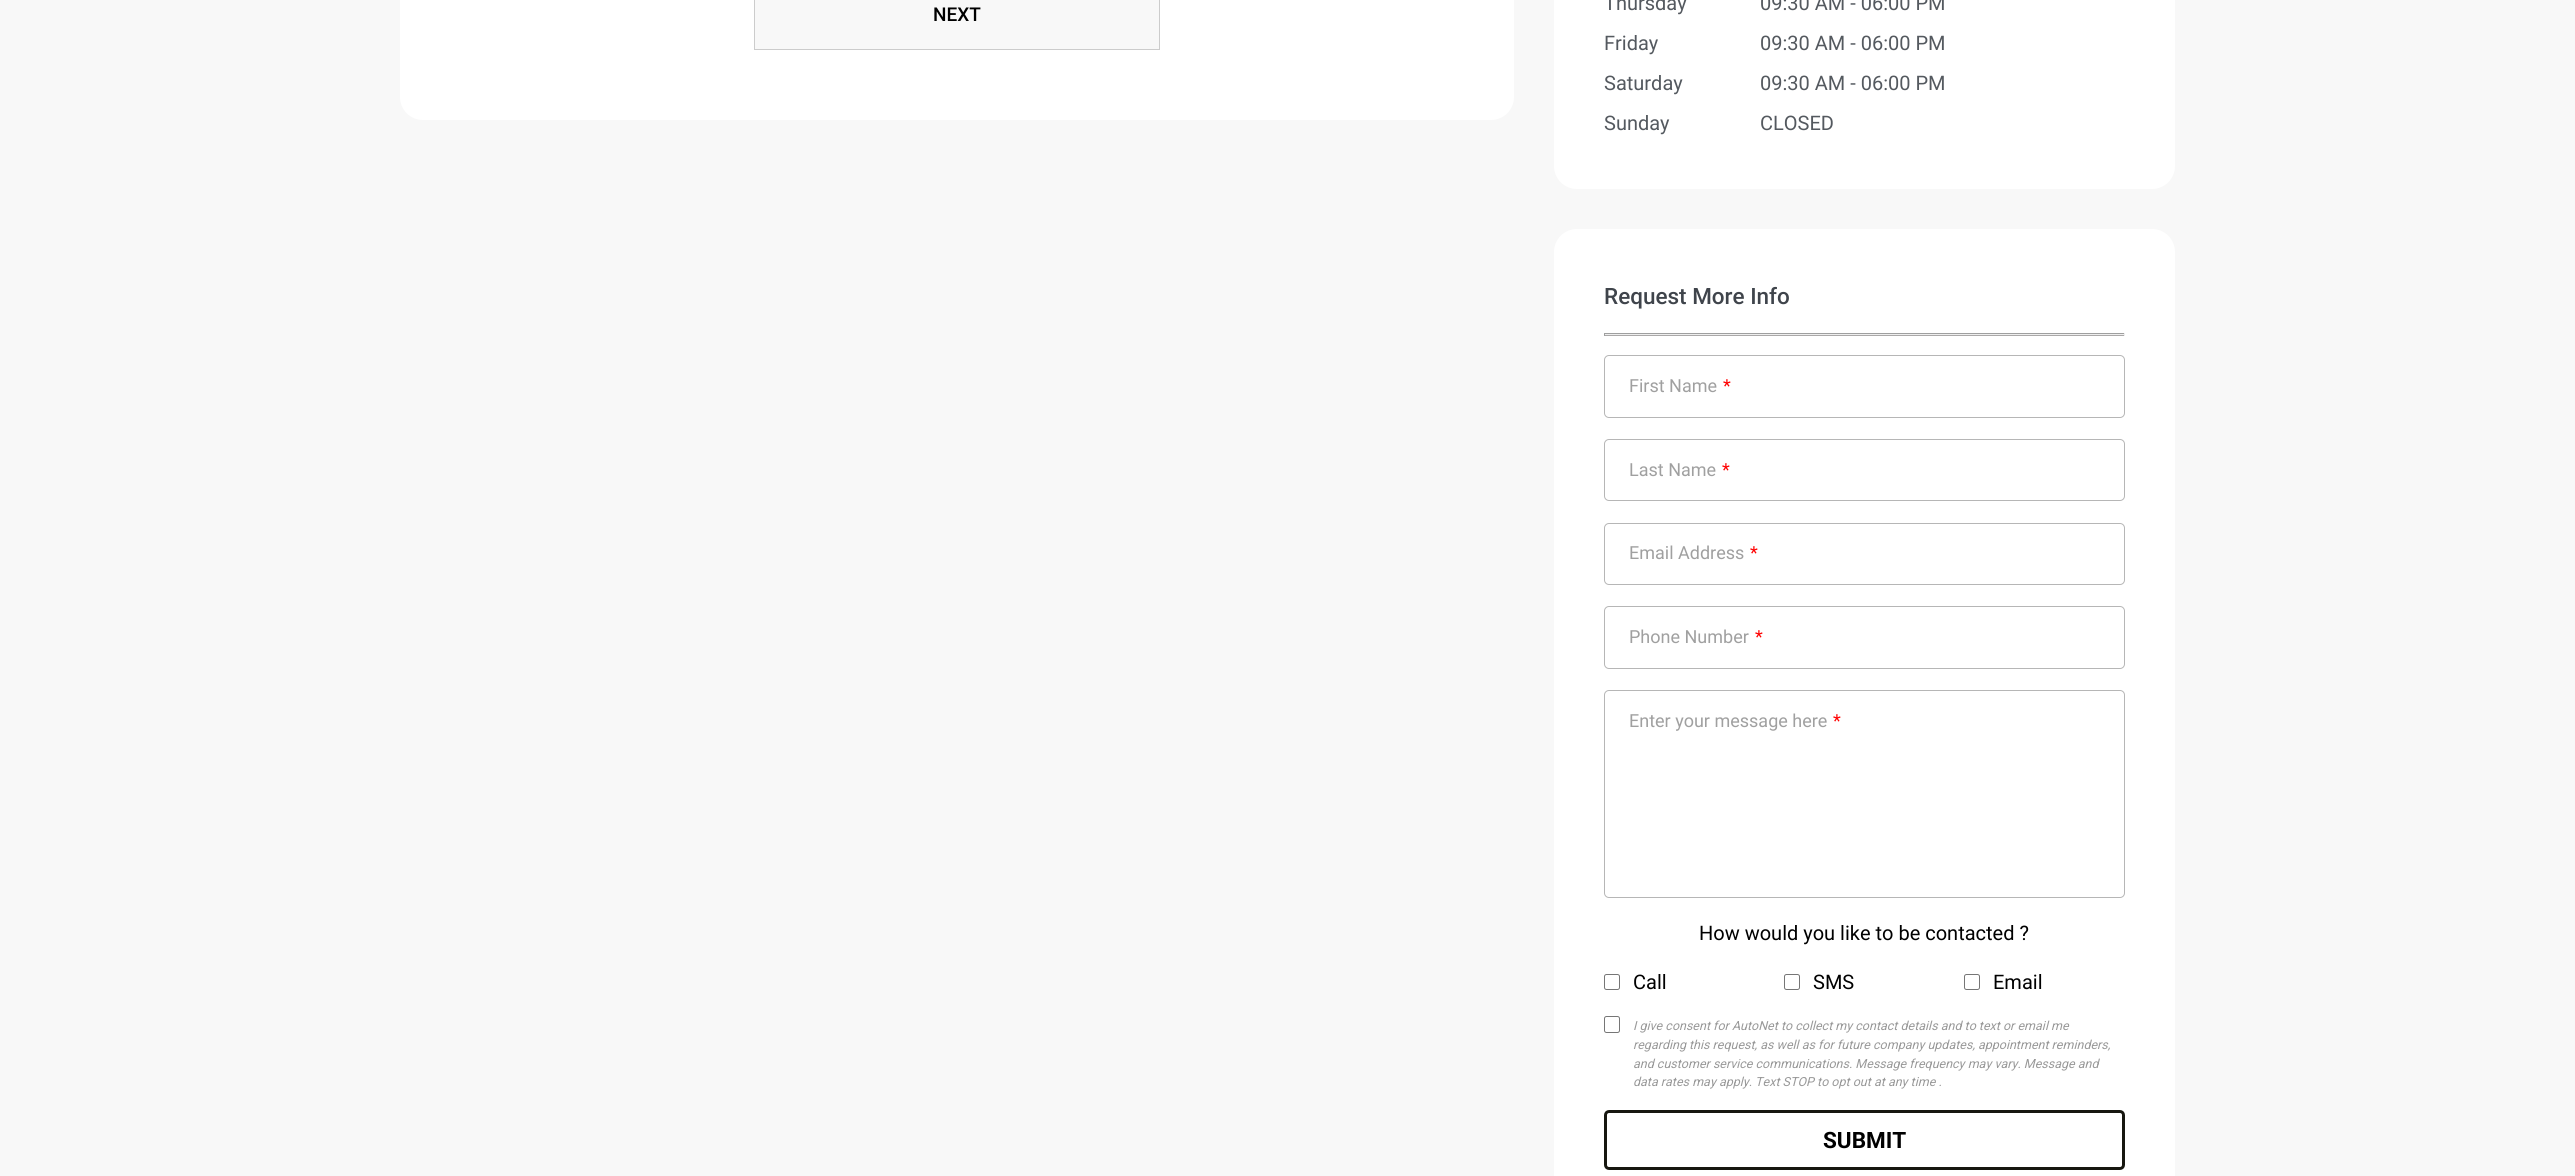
#include <cairo/cairo.h>
#include <math.h>
#include <stddef.h>


static void rounded_rect(cairo_t *cr, double x, double y, double w, double h, double r) {
  cairo_new_sub_path(cr);
  cairo_arc(cr, x + w - r, y + h - r, r, 0, M_PI / 2);
  cairo_arc(cr, x + r, y + h - r, r, M_PI / 2, M_PI);
  cairo_arc(cr, x + r, y + r, r, M_PI, 1.5 * M_PI);
  cairo_arc(cr, x + w - r, y + r, r, 1.5 * M_PI, 2 * M_PI);
  cairo_close_path(cr);
}

static void draw(cairo_t *cr) {
  cairo_set_source_rgb(cr, 248 / 255.0, 248 / 255.0, 248 / 255.0);
  cairo_paint(cr);
  cairo_set_source_rgb(cr, 1, 1, 1);
  rounded_rect(cr, 400, -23, 1114, 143, 23);
  cairo_fill(cr);
  cairo_set_source_rgb(cr, 248 / 255.0, 248 / 255.0, 248 / 255.0);
  cairo_rectangle(cr, 754.5, -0.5, 405, 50);
  cairo_fill_preserve(cr);
  cairo_set_source_rgb(cr, 204 / 255.0, 204 / 255.0, 204 / 255.0);
  cairo_set_line_width(cr, 1);
  cairo_stroke(cr);
  cairo_set_source_rgb(cr, 1, 1, 1);
  rounded_rect(cr, 1554, -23, 621, 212, 23);
  cairo_fill(cr);
  rounded_rect(cr, 1554, 229, 621, 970, 23);
  cairo_fill(cr);
  cairo_set_source_rgb(cr, 170 / 255.0, 168 / 255.0, 168 / 255.0);
  cairo_rectangle(cr, 1604, 335, 521, 1);
  cairo_fill(cr);
  cairo_set_source_rgb(cr, 159 / 255.0, 159 / 255.0, 159 / 255.0);
  cairo_rectangle(cr, 1604, 333, 521, 1);
  cairo_fill(cr);
  cairo_set_source_rgb(cr, 238 / 255.0, 238 / 255.0, 238 / 255.0);
  cairo_rectangle(cr, 2124, 333, 1, 3);
  cairo_fill(cr);
  cairo_rectangle(cr, 1604, 334, 521, 1);
  cairo_fill(cr);
  cairo_set_source_rgb(cr, 159 / 255.0, 159 / 255.0, 159 / 255.0);
  cairo_rectangle(cr, 1604, 333, 1, 3);
  cairo_fill(cr);
  rounded_rect(cr, 1604.5, 355.5, 520, 62, 4.5);
  cairo_set_source_rgb(cr, 182 / 255.0, 182 / 255.0, 182 / 255.0);
  cairo_stroke(cr);
  rounded_rect(cr, 1604.5, 439.5, 520, 61, 4.5);
  cairo_stroke(cr);
  rounded_rect(cr, 1604.5, 523.5, 520, 61, 4.5);
  cairo_stroke(cr);
  rounded_rect(cr, 1604.5, 606.5, 520, 62, 4.5);
  cairo_stroke(cr);
  rounded_rect(cr, 1604.5, 690.5, 520, 207, 4.5);
  cairo_stroke(cr);
  rounded_rect(cr, 1604.5, 974.5, 15, 15, 2);
  cairo_set_source_rgb(cr, 118 / 255.0, 118 / 255.0, 118 / 255.0);
  cairo_stroke(cr);
  rounded_rect(cr, 1784.5, 974.5, 15, 15, 2);
  cairo_stroke(cr);
  rounded_rect(cr, 1964.5, 974.5, 15, 15, 2);
  cairo_stroke(cr);
  rounded_rect(cr, 1604.5, 1016.5, 15, 16, 2);
  cairo_stroke(cr);
  rounded_rect(cr, 1605.5, 1111.5, 518, 57, 3.5);
  cairo_set_source_rgb(cr, 23 / 255.0, 23 / 255.0, 16 / 255.0);
  cairo_set_line_width(cr, 3);
  cairo_stroke(cr);
  cairo_select_font_face(cr, "Roboto Medium", CAIRO_FONT_SLANT_NORMAL, CAIRO_FONT_WEIGHT_NORMAL);
  cairo_set_font_size(cr, 19);
  cairo_set_source_rgb(cr, 0, 0, 0);
  cairo_move_to(cr, 933, 21);
  cairo_show_text(cr, "NEXT");
  cairo_select_font_face(cr, "Roboto", CAIRO_FONT_SLANT_NORMAL, CAIRO_FONT_WEIGHT_NORMAL);
  cairo_set_font_size(cr, 20);
  cairo_set_source_rgb(cr, 84 / 255.0, 89 / 255.0, 95 / 255.0);
  cairo_move_to(cr, 1604, 10);
  cairo_show_text(cr, "Thursday");
  cairo_move_to(cr, 1760, 10);
  cairo_show_text(cr, "09:30 AM - 06:00 PM");
  cairo_move_to(cr, 1604, 50);
  cairo_show_text(cr, "Friday");
  cairo_move_to(cr, 1760, 50);
  cairo_show_text(cr, "09:30 AM - 06:00 PM");
  cairo_move_to(cr, 1604, 90);
  cairo_show_text(cr, "Saturday");
  cairo_move_to(cr, 1760, 90);
  cairo_show_text(cr, "09:30 AM - 06:00 PM");
  cairo_move_to(cr, 1604, 130);
  cairo_show_text(cr, "Sunday");
  cairo_move_to(cr, 1760, 130);
  cairo_show_text(cr, "CLOSED");
  cairo_select_font_face(cr, "Roboto Medium", CAIRO_FONT_SLANT_NORMAL, CAIRO_FONT_WEIGHT_NORMAL);
  cairo_set_font_size(cr, 22.5);
  cairo_set_source_rgb(cr, 63 / 255.0, 68 / 255.0, 75 / 255.0);
  cairo_move_to(cr, 1604, 304);
  cairo_show_text(cr, "Request More Info");
  cairo_select_font_face(cr, "Roboto", CAIRO_FONT_SLANT_NORMAL, CAIRO_FONT_WEIGHT_NORMAL);
  cairo_set_font_size(cr, 18);
  cairo_set_source_rgb(cr, 160 / 255.0, 160 / 255.0, 160 / 255.0);
  cairo_move_to(cr, 1629, 392);
  cairo_show_text(cr, "First Name");
  cairo_set_source_rgb(cr, 1, 0, 0);
  cairo_move_to(cr, 1723, 392);
  cairo_show_text(cr, "*");
  cairo_set_source_rgb(cr, 160 / 255.0, 160 / 255.0, 160 / 255.0);
  cairo_move_to(cr, 1629, 476);
  cairo_show_text(cr, "Last Name");
  cairo_set_source_rgb(cr, 1, 0, 0);
  cairo_move_to(cr, 1722, 476);
  cairo_show_text(cr, "*");
  cairo_set_source_rgb(cr, 160 / 255.0, 160 / 255.0, 160 / 255.0);
  cairo_move_to(cr, 1629, 559);
  cairo_show_text(cr, "Email Address");
  cairo_set_source_rgb(cr, 1, 0, 0);
  cairo_move_to(cr, 1750, 559);
  cairo_show_text(cr, "*");
  cairo_set_source_rgb(cr, 160 / 255.0, 160 / 255.0, 160 / 255.0);
  cairo_move_to(cr, 1629, 643);
  cairo_show_text(cr, "Phone Number");
  cairo_set_source_rgb(cr, 1, 0, 0);
  cairo_move_to(cr, 1755, 643);
  cairo_show_text(cr, "*");
  cairo_set_source_rgb(cr, 160 / 255.0, 160 / 255.0, 160 / 255.0);
  cairo_move_to(cr, 1629, 727);
  cairo_show_text(cr, "Enter your message here");
  cairo_set_source_rgb(cr, 1, 0, 0);
  cairo_move_to(cr, 1833, 727);
  cairo_show_text(cr, "*");
  cairo_set_font_size(cr, 20);
  cairo_set_source_rgb(cr, 0, 0, 0);
  cairo_move_to(cr, 1699, 940);
  cairo_show_text(cr, "How would you like to be contacted ?");
  cairo_move_to(cr, 1633, 989);
  cairo_show_text(cr, "Call");
  cairo_move_to(cr, 1813, 989);
  cairo_show_text(cr, "SMS");
  cairo_move_to(cr, 1993, 989);
  cairo_show_text(cr, "Email");
  cairo_select_font_face(cr, "Roboto", CAIRO_FONT_SLANT_ITALIC, CAIRO_FONT_WEIGHT_NORMAL);
  cairo_set_font_size(cr, 12.5);
  cairo_set_source_rgb(cr, 153 / 255.0, 153 / 255.0, 153 / 255.0);
  cairo_move_to(cr, 1633, 1030);
  cairo_show_text(cr, "I give consent for AutoNet to collect my contact details and to text or email me");
  cairo_move_to(cr, 1633, 1049);
  cairo_show_text(cr, "regarding this request, as well as for future company updates, appointment reminders,");
  cairo_move_to(cr, 1633, 1068);
  cairo_show_text(cr, "and customer service communications. Message frequency may vary. Message and");
  cairo_move_to(cr, 1633, 1086);
  cairo_show_text(cr, "data rates may apply. Text STOP to opt out at any time .");
  cairo_select_font_face(cr, "Roboto", CAIRO_FONT_SLANT_NORMAL, CAIRO_FONT_WEIGHT_BOLD);
  cairo_set_font_size(cr, 22.5);
  cairo_set_source_rgb(cr, 0, 0, 0);
  cairo_move_to(cr, 1823, 1148);
  cairo_show_text(cr, "SUBMIT");
}

int main(void) {
  cairo_surface_t *surface = cairo_image_surface_create(CAIRO_FORMAT_RGB24, 2575, 1176);
  cairo_t *cr = cairo_create(surface);
  cairo_font_options_t *options = cairo_font_options_create();
  cairo_font_options_set_hint_metrics(options, CAIRO_HINT_METRICS_OFF);
  cairo_font_options_set_hint_style(options, CAIRO_HINT_STYLE_NONE);
  cairo_set_font_options(cr, options);
  cairo_set_miter_limit(cr, 4);
  draw(cr);
  cairo_surface_write_to_png(surface, "out.png");
  cairo_font_options_destroy(options);
  cairo_destroy(cr);
  cairo_surface_destroy(surface);
  return 0;
}
